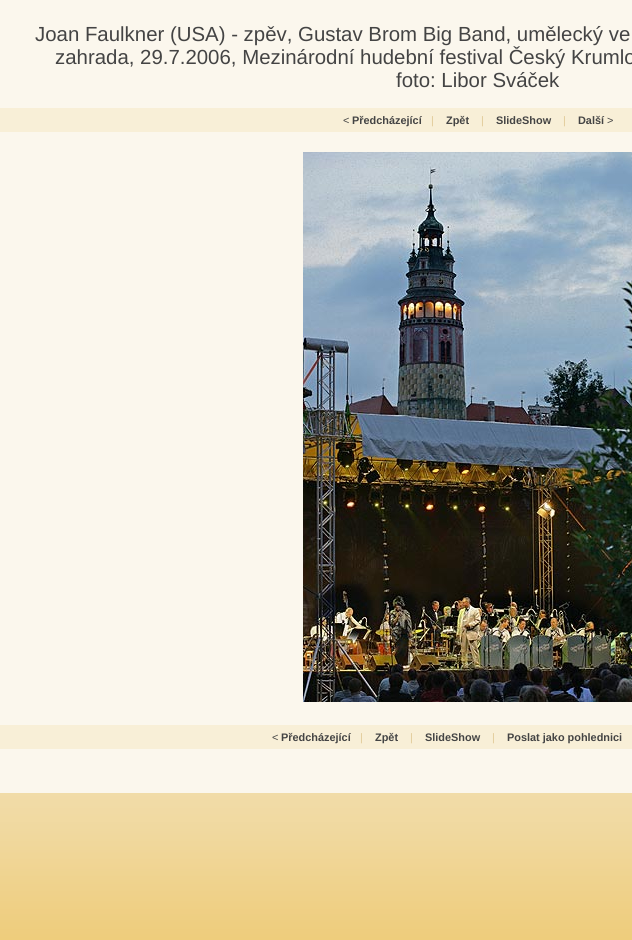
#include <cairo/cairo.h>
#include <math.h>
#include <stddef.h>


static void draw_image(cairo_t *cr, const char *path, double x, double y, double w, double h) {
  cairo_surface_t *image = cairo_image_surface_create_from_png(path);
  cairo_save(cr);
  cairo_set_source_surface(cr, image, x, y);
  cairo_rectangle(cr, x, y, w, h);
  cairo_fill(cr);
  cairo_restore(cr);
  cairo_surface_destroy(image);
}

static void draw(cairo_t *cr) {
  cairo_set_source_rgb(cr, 251 / 255.0, 247 / 255.0, 237 / 255.0);
  cairo_paint(cr);
  cairo_set_source_rgb(cr, 248 / 255.0, 239 / 255.0, 215 / 255.0);
  cairo_rectangle(cr, 0, 108, 632, 24);
  cairo_fill(cr);
  draw_image(cr, "images/1.png", 303, 152, 329, 550);
  cairo_rectangle(cr, 0, 725, 632, 24);
  cairo_fill(cr);
  draw_image(cr, "images/2.png", 0, 793, 632, 147);
  cairo_select_font_face(cr, "Liberation Sans", CAIRO_FONT_SLANT_NORMAL, CAIRO_FONT_WEIGHT_NORMAL);
  cairo_set_font_size(cr, 20.4);
  cairo_set_source_rgb(cr, 68 / 255.0, 68 / 255.0, 68 / 255.0);
  cairo_move_to(cr, 35, 41);
  cairo_show_text(cr, "Joan Faulkner (USA) - zpěv, Gustav Brom Big Band, umělecký ve");
  cairo_move_to(cr, 55, 64);
  cairo_show_text(cr, "zahrada, 29.7.2006, Mezinárodní hudební festival Český Krumlo");
  cairo_move_to(cr, 396, 87);
  cairo_show_text(cr, "foto: Libor Sváček");
  cairo_set_font_size(cr, 10.9);
  cairo_move_to(cr, 343, 124);
  cairo_show_text(cr, "<");
  cairo_select_font_face(cr, "Liberation Sans", CAIRO_FONT_SLANT_NORMAL, CAIRO_FONT_WEIGHT_BOLD);
  cairo_move_to(cr, 352, 124);
  cairo_show_text(cr, "Předcházející");
  cairo_select_font_face(cr, "Liberation Sans", CAIRO_FONT_SLANT_NORMAL, CAIRO_FONT_WEIGHT_NORMAL);
  cairo_set_source_rgb(cr, 225 / 255.0, 202 / 255.0, 151 / 255.0);
  cairo_move_to(cr, 431, 124);
  cairo_show_text(cr, "|");
  cairo_select_font_face(cr, "Liberation Sans", CAIRO_FONT_SLANT_NORMAL, CAIRO_FONT_WEIGHT_BOLD);
  cairo_set_source_rgb(cr, 68 / 255.0, 68 / 255.0, 68 / 255.0);
  cairo_move_to(cr, 446, 124);
  cairo_show_text(cr, "Zpět");
  cairo_select_font_face(cr, "Liberation Sans", CAIRO_FONT_SLANT_NORMAL, CAIRO_FONT_WEIGHT_NORMAL);
  cairo_set_source_rgb(cr, 225 / 255.0, 202 / 255.0, 151 / 255.0);
  cairo_move_to(cr, 481, 124);
  cairo_show_text(cr, "|");
  cairo_select_font_face(cr, "Liberation Sans", CAIRO_FONT_SLANT_NORMAL, CAIRO_FONT_WEIGHT_BOLD);
  cairo_set_source_rgb(cr, 68 / 255.0, 68 / 255.0, 68 / 255.0);
  cairo_move_to(cr, 496, 124);
  cairo_show_text(cr, "SlideShow");
  cairo_select_font_face(cr, "Liberation Sans", CAIRO_FONT_SLANT_NORMAL, CAIRO_FONT_WEIGHT_NORMAL);
  cairo_set_source_rgb(cr, 225 / 255.0, 202 / 255.0, 151 / 255.0);
  cairo_move_to(cr, 563, 124);
  cairo_show_text(cr, "|");
  cairo_select_font_face(cr, "Liberation Sans", CAIRO_FONT_SLANT_NORMAL, CAIRO_FONT_WEIGHT_BOLD);
  cairo_set_source_rgb(cr, 68 / 255.0, 68 / 255.0, 68 / 255.0);
  cairo_move_to(cr, 578, 124);
  cairo_show_text(cr, "Další");
  cairo_select_font_face(cr, "Liberation Sans", CAIRO_FONT_SLANT_NORMAL, CAIRO_FONT_WEIGHT_NORMAL);
  cairo_move_to(cr, 607, 124);
  cairo_show_text(cr, ">");
  cairo_move_to(cr, 272, 741);
  cairo_show_text(cr, "<");
  cairo_select_font_face(cr, "Liberation Sans", CAIRO_FONT_SLANT_NORMAL, CAIRO_FONT_WEIGHT_BOLD);
  cairo_move_to(cr, 281, 741);
  cairo_show_text(cr, "Předcházející");
  cairo_select_font_face(cr, "Liberation Sans", CAIRO_FONT_SLANT_NORMAL, CAIRO_FONT_WEIGHT_NORMAL);
  cairo_set_source_rgb(cr, 225 / 255.0, 202 / 255.0, 151 / 255.0);
  cairo_move_to(cr, 360, 741);
  cairo_show_text(cr, "|");
  cairo_select_font_face(cr, "Liberation Sans", CAIRO_FONT_SLANT_NORMAL, CAIRO_FONT_WEIGHT_BOLD);
  cairo_set_source_rgb(cr, 68 / 255.0, 68 / 255.0, 68 / 255.0);
  cairo_move_to(cr, 375, 741);
  cairo_show_text(cr, "Zpět");
  cairo_select_font_face(cr, "Liberation Sans", CAIRO_FONT_SLANT_NORMAL, CAIRO_FONT_WEIGHT_NORMAL);
  cairo_set_source_rgb(cr, 225 / 255.0, 202 / 255.0, 151 / 255.0);
  cairo_move_to(cr, 410, 741);
  cairo_show_text(cr, "|");
  cairo_select_font_face(cr, "Liberation Sans", CAIRO_FONT_SLANT_NORMAL, CAIRO_FONT_WEIGHT_BOLD);
  cairo_set_source_rgb(cr, 68 / 255.0, 68 / 255.0, 68 / 255.0);
  cairo_move_to(cr, 425, 741);
  cairo_show_text(cr, "SlideShow");
  cairo_select_font_face(cr, "Liberation Sans", CAIRO_FONT_SLANT_NORMAL, CAIRO_FONT_WEIGHT_NORMAL);
  cairo_set_source_rgb(cr, 225 / 255.0, 202 / 255.0, 151 / 255.0);
  cairo_move_to(cr, 492, 741);
  cairo_show_text(cr, "|");
  cairo_select_font_face(cr, "Liberation Sans", CAIRO_FONT_SLANT_NORMAL, CAIRO_FONT_WEIGHT_BOLD);
  cairo_set_source_rgb(cr, 68 / 255.0, 68 / 255.0, 68 / 255.0);
  cairo_move_to(cr, 507, 741);
  cairo_show_text(cr, "Poslat jako pohlednici");
}

int main(void) {
  cairo_surface_t *surface = cairo_image_surface_create(CAIRO_FORMAT_RGB24, 632, 940);
  cairo_t *cr = cairo_create(surface);
  cairo_font_options_t *options = cairo_font_options_create();
  cairo_font_options_set_hint_metrics(options, CAIRO_HINT_METRICS_OFF);
  cairo_font_options_set_hint_style(options, CAIRO_HINT_STYLE_NONE);
  cairo_set_font_options(cr, options);
  cairo_set_miter_limit(cr, 4);
  draw(cr);
  cairo_surface_write_to_png(surface, "out.png");
  cairo_font_options_destroy(options);
  cairo_destroy(cr);
  cairo_surface_destroy(surface);
  return 0;
}
